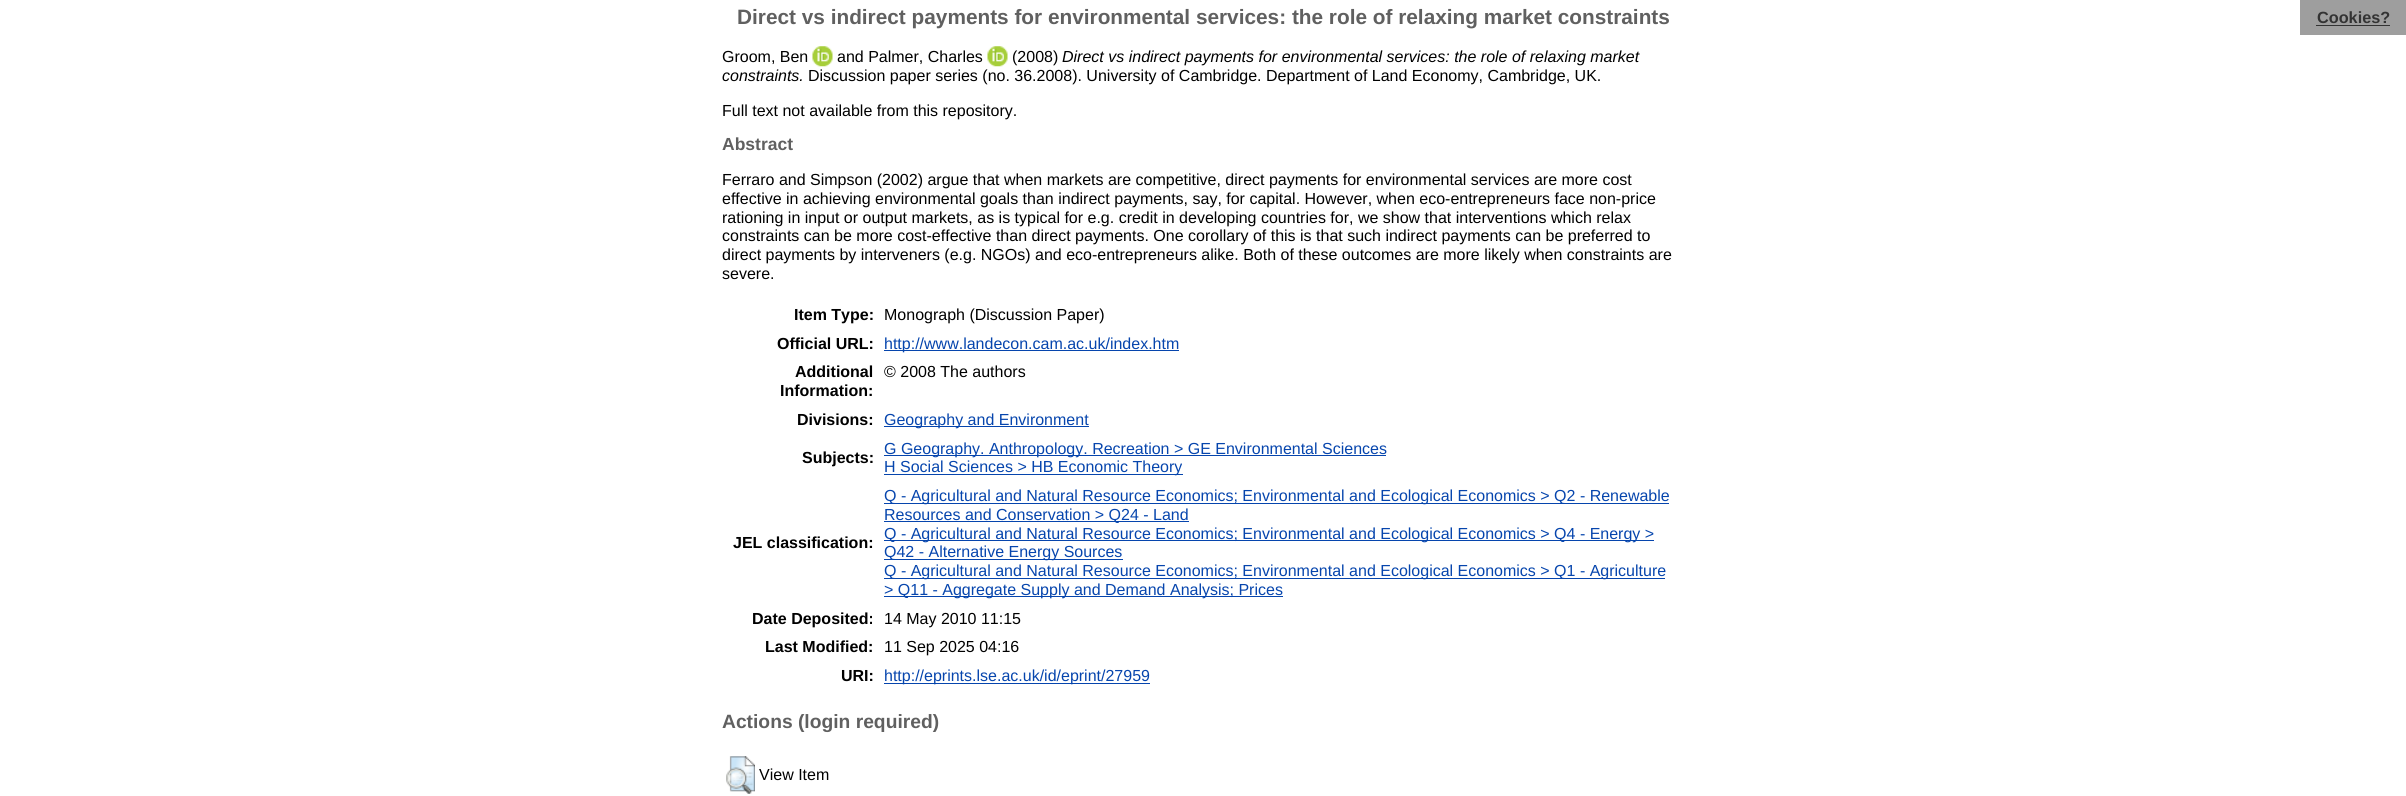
#include <cairo/cairo.h>
#include <math.h>
#include <stddef.h>


static void draw_image(cairo_t *cr, const char *path, double x, double y, double w, double h) {
  cairo_surface_t *image = cairo_image_surface_create_from_png(path);
  cairo_save(cr);
  cairo_set_source_surface(cr, image, x, y);
  cairo_rectangle(cr, x, y, w, h);
  cairo_fill(cr);
  cairo_restore(cr);
  cairo_surface_destroy(image);
}

static void draw(cairo_t *cr) {
  cairo_set_source_rgb(cr, 1, 1, 1);
  cairo_paint(cr);
  draw_image(cr, "images/1.png", 812, 46, 21, 21);
  draw_image(cr, "images/1.png", 987, 46, 21, 21);
  cairo_set_source_rgb(cr, 6 / 255.0, 69 / 255.0, 173 / 255.0);
  cairo_rectangle(cr, 884, 350, 295, 1);
  cairo_fill(cr);
  cairo_rectangle(cr, 884, 426, 205, 1);
  cairo_fill(cr);
  cairo_rectangle(cr, 884, 455, 502, 1);
  cairo_fill(cr);
  cairo_rectangle(cr, 884, 474, 299, 1);
  cairo_fill(cr);
  cairo_rectangle(cr, 884, 503, 785, 1);
  cairo_fill(cr);
  cairo_rectangle(cr, 884, 521, 305, 1);
  cairo_fill(cr);
  cairo_rectangle(cr, 884, 540, 770, 1);
  cairo_fill(cr);
  cairo_rectangle(cr, 884, 559, 239, 1);
  cairo_fill(cr);
  cairo_rectangle(cr, 884, 578, 781, 1);
  cairo_fill(cr);
  cairo_rectangle(cr, 884, 596, 399, 1);
  cairo_fill(cr);
  cairo_rectangle(cr, 884, 683, 266, 1);
  cairo_fill(cr);
  draw_image(cr, "images/2.png", 726, 756, 29, 38);
  cairo_set_source_rgb(cr, 158 / 255.0, 158 / 255.0, 158 / 255.0);
  cairo_rectangle(cr, 2300, 0, 106, 35);
  cairo_fill(cr);
  cairo_set_source_rgb(cr, 51 / 255.0, 51 / 255.0, 51 / 255.0);
  cairo_rectangle(cr, 2316, 25, 74, 1);
  cairo_fill(cr);
  cairo_select_font_face(cr, "Liberation Sans", CAIRO_FONT_SLANT_NORMAL, CAIRO_FONT_WEIGHT_BOLD);
  cairo_set_font_size(cr, 20.8);
  cairo_set_source_rgb(cr, 96 / 255.0, 96 / 255.0, 96 / 255.0);
  cairo_move_to(cr, 737, 24);
  cairo_show_text(cr, "Direct vs indirect payments for environmental services: the role of relaxing market constraints");
  cairo_select_font_face(cr, "Liberation Sans", CAIRO_FONT_SLANT_NORMAL, CAIRO_FONT_WEIGHT_NORMAL);
  cairo_set_font_size(cr, 16);
  cairo_set_source_rgb(cr, 0, 0, 0);
  cairo_move_to(cr, 722, 62);
  cairo_show_text(cr, "Groom, Ben");
  cairo_move_to(cr, 837, 62);
  cairo_show_text(cr, "and Palmer, Charles");
  cairo_move_to(cr, 1012, 62);
  cairo_show_text(cr, "(2008)");
  cairo_select_font_face(cr, "Liberation Sans", CAIRO_FONT_SLANT_ITALIC, CAIRO_FONT_WEIGHT_NORMAL);
  cairo_move_to(cr, 1062, 62);
  cairo_show_text(cr, "Direct vs indirect payments for environmental services: the role of relaxing market");
  cairo_move_to(cr, 722, 81);
  cairo_show_text(cr, "constraints.");
  cairo_select_font_face(cr, "Liberation Sans", CAIRO_FONT_SLANT_NORMAL, CAIRO_FONT_WEIGHT_NORMAL);
  cairo_move_to(cr, 808, 81);
  cairo_show_text(cr, "Discussion paper series (no. 36.2008). University of Cambridge. Department of Land Economy, Cambridge, UK.");
  cairo_move_to(cr, 722, 116);
  cairo_show_text(cr, "Full text not available from this repository.");
  cairo_select_font_face(cr, "Liberation Sans", CAIRO_FONT_SLANT_NORMAL, CAIRO_FONT_WEIGHT_BOLD);
  cairo_set_font_size(cr, 17.5);
  cairo_set_source_rgb(cr, 96 / 255.0, 96 / 255.0, 96 / 255.0);
  cairo_move_to(cr, 722, 150);
  cairo_show_text(cr, "Abstract");
  cairo_select_font_face(cr, "Liberation Sans", CAIRO_FONT_SLANT_NORMAL, CAIRO_FONT_WEIGHT_NORMAL);
  cairo_set_font_size(cr, 16);
  cairo_set_source_rgb(cr, 0, 0, 0);
  cairo_move_to(cr, 722, 185);
  cairo_show_text(cr, "Ferraro and Simpson (2002) argue that when markets are competitive, direct payments for environmental services are more cost");
  cairo_move_to(cr, 722, 204);
  cairo_show_text(cr, "effective in achieving environmental goals than indirect payments, say, for capital. However, when eco-entrepreneurs face non-price");
  cairo_move_to(cr, 722, 223);
  cairo_show_text(cr, "rationing in input or output markets, as is typical for e.g. credit in developing countries for, we show that interventions which relax");
  cairo_move_to(cr, 722, 241);
  cairo_show_text(cr, "constraints can be more cost-effective than direct payments. One corollary of this is that such indirect payments can be preferred to");
  cairo_move_to(cr, 722, 260);
  cairo_show_text(cr, "direct payments by interveners (e.g. NGOs) and eco-entrepreneurs alike. Both of these outcomes are more likely when constraints are");
  cairo_move_to(cr, 722, 279);
  cairo_show_text(cr, "severe.");
  cairo_select_font_face(cr, "Liberation Sans", CAIRO_FONT_SLANT_NORMAL, CAIRO_FONT_WEIGHT_BOLD);
  cairo_move_to(cr, 794, 320);
  cairo_show_text(cr, "Item Type:");
  cairo_select_font_face(cr, "Liberation Sans", CAIRO_FONT_SLANT_NORMAL, CAIRO_FONT_WEIGHT_NORMAL);
  cairo_move_to(cr, 884, 320);
  cairo_show_text(cr, "Monograph (Discussion Paper)");
  cairo_select_font_face(cr, "Liberation Sans", CAIRO_FONT_SLANT_NORMAL, CAIRO_FONT_WEIGHT_BOLD);
  cairo_move_to(cr, 777, 349);
  cairo_show_text(cr, "Official URL:");
  cairo_select_font_face(cr, "Liberation Sans", CAIRO_FONT_SLANT_NORMAL, CAIRO_FONT_WEIGHT_NORMAL);
  cairo_set_source_rgb(cr, 6 / 255.0, 69 / 255.0, 173 / 255.0);
  cairo_move_to(cr, 884, 349);
  cairo_show_text(cr, "http://www.landecon.cam.ac.uk/index.htm");
  cairo_select_font_face(cr, "Liberation Sans", CAIRO_FONT_SLANT_NORMAL, CAIRO_FONT_WEIGHT_BOLD);
  cairo_set_source_rgb(cr, 0, 0, 0);
  cairo_move_to(cr, 795, 377);
  cairo_show_text(cr, "Additional");
  cairo_move_to(cr, 780, 396);
  cairo_show_text(cr, "Information:");
  cairo_select_font_face(cr, "Liberation Sans", CAIRO_FONT_SLANT_NORMAL, CAIRO_FONT_WEIGHT_NORMAL);
  cairo_move_to(cr, 884, 377);
  cairo_show_text(cr, "© 2008 The authors");
  cairo_select_font_face(cr, "Liberation Sans", CAIRO_FONT_SLANT_NORMAL, CAIRO_FONT_WEIGHT_BOLD);
  cairo_move_to(cr, 797, 425);
  cairo_show_text(cr, "Divisions:");
  cairo_select_font_face(cr, "Liberation Sans", CAIRO_FONT_SLANT_NORMAL, CAIRO_FONT_WEIGHT_NORMAL);
  cairo_set_source_rgb(cr, 6 / 255.0, 69 / 255.0, 173 / 255.0);
  cairo_move_to(cr, 884, 425);
  cairo_show_text(cr, "Geography and Environment");
  cairo_select_font_face(cr, "Liberation Sans", CAIRO_FONT_SLANT_NORMAL, CAIRO_FONT_WEIGHT_BOLD);
  cairo_set_source_rgb(cr, 0, 0, 0);
  cairo_move_to(cr, 802, 463);
  cairo_show_text(cr, "Subjects:");
  cairo_select_font_face(cr, "Liberation Sans", CAIRO_FONT_SLANT_NORMAL, CAIRO_FONT_WEIGHT_NORMAL);
  cairo_set_source_rgb(cr, 6 / 255.0, 69 / 255.0, 173 / 255.0);
  cairo_move_to(cr, 884, 454);
  cairo_show_text(cr, "G Geography. Anthropology. Recreation > GE Environmental Sciences");
  cairo_move_to(cr, 884, 472);
  cairo_show_text(cr, "H Social Sciences > HB Economic Theory");
  cairo_select_font_face(cr, "Liberation Sans", CAIRO_FONT_SLANT_NORMAL, CAIRO_FONT_WEIGHT_BOLD);
  cairo_set_source_rgb(cr, 0, 0, 0);
  cairo_move_to(cr, 733, 548);
  cairo_show_text(cr, "JEL classification:");
  cairo_select_font_face(cr, "Liberation Sans", CAIRO_FONT_SLANT_NORMAL, CAIRO_FONT_WEIGHT_NORMAL);
  cairo_set_source_rgb(cr, 6 / 255.0, 69 / 255.0, 173 / 255.0);
  cairo_move_to(cr, 884, 501);
  cairo_show_text(cr, "Q - Agricultural and Natural Resource Economics; Environmental and Ecological Economics > Q2 - Renewable");
  cairo_move_to(cr, 884, 520);
  cairo_show_text(cr, "Resources and Conservation > Q24 - Land");
  cairo_move_to(cr, 884, 539);
  cairo_show_text(cr, "Q - Agricultural and Natural Resource Economics; Environmental and Ecological Economics > Q4 - Energy >");
  cairo_move_to(cr, 884, 557);
  cairo_show_text(cr, "Q42 - Alternative Energy Sources");
  cairo_move_to(cr, 884, 576);
  cairo_show_text(cr, "Q - Agricultural and Natural Resource Economics; Environmental and Ecological Economics > Q1 - Agriculture");
  cairo_move_to(cr, 884, 595);
  cairo_show_text(cr, "> Q11 - Aggregate Supply and Demand Analysis; Prices");
  cairo_select_font_face(cr, "Liberation Sans", CAIRO_FONT_SLANT_NORMAL, CAIRO_FONT_WEIGHT_BOLD);
  cairo_set_source_rgb(cr, 0, 0, 0);
  cairo_move_to(cr, 752, 624);
  cairo_show_text(cr, "Date Deposited:");
  cairo_select_font_face(cr, "Liberation Sans", CAIRO_FONT_SLANT_NORMAL, CAIRO_FONT_WEIGHT_NORMAL);
  cairo_move_to(cr, 884, 624);
  cairo_show_text(cr, "14 May 2010 11:15");
  cairo_select_font_face(cr, "Liberation Sans", CAIRO_FONT_SLANT_NORMAL, CAIRO_FONT_WEIGHT_BOLD);
  cairo_move_to(cr, 765, 652);
  cairo_show_text(cr, "Last Modified:");
  cairo_select_font_face(cr, "Liberation Sans", CAIRO_FONT_SLANT_NORMAL, CAIRO_FONT_WEIGHT_NORMAL);
  cairo_move_to(cr, 884, 652);
  cairo_show_text(cr, "11 Sep 2025 04:16");
  cairo_select_font_face(cr, "Liberation Sans", CAIRO_FONT_SLANT_NORMAL, CAIRO_FONT_WEIGHT_BOLD);
  cairo_move_to(cr, 841, 681);
  cairo_show_text(cr, "URI:");
  cairo_select_font_face(cr, "Liberation Sans", CAIRO_FONT_SLANT_NORMAL, CAIRO_FONT_WEIGHT_NORMAL);
  cairo_set_source_rgb(cr, 6 / 255.0, 69 / 255.0, 173 / 255.0);
  cairo_move_to(cr, 884, 681);
  cairo_show_text(cr, "http://eprints.lse.ac.uk/id/eprint/27959");
  cairo_select_font_face(cr, "Liberation Sans", CAIRO_FONT_SLANT_NORMAL, CAIRO_FONT_WEIGHT_BOLD);
  cairo_set_font_size(cr, 19.25);
  cairo_set_source_rgb(cr, 96 / 255.0, 96 / 255.0, 96 / 255.0);
  cairo_move_to(cr, 722, 728);
  cairo_show_text(cr, "Actions (login required)");
  cairo_select_font_face(cr, "Liberation Sans", CAIRO_FONT_SLANT_NORMAL, CAIRO_FONT_WEIGHT_NORMAL);
  cairo_set_font_size(cr, 16);
  cairo_set_source_rgb(cr, 0, 0, 0);
  cairo_move_to(cr, 759, 780);
  cairo_show_text(cr, "View Item");
  cairo_select_font_face(cr, "Liberation Sans", CAIRO_FONT_SLANT_NORMAL, CAIRO_FONT_WEIGHT_BOLD);
  cairo_set_font_size(cr, 16.25);
  cairo_set_source_rgb(cr, 51 / 255.0, 51 / 255.0, 51 / 255.0);
  cairo_move_to(cr, 2317, 23);
  cairo_show_text(cr, "Cookies?");
}

int main(void) {
  cairo_surface_t *surface = cairo_image_surface_create(CAIRO_FORMAT_RGB24, 2406, 796);
  cairo_t *cr = cairo_create(surface);
  cairo_font_options_t *options = cairo_font_options_create();
  cairo_font_options_set_hint_metrics(options, CAIRO_HINT_METRICS_OFF);
  cairo_font_options_set_hint_style(options, CAIRO_HINT_STYLE_NONE);
  cairo_set_font_options(cr, options);
  cairo_set_miter_limit(cr, 4);
  draw(cr);
  cairo_surface_write_to_png(surface, "out.png");
  cairo_font_options_destroy(options);
  cairo_destroy(cr);
  cairo_surface_destroy(surface);
  return 0;
}
